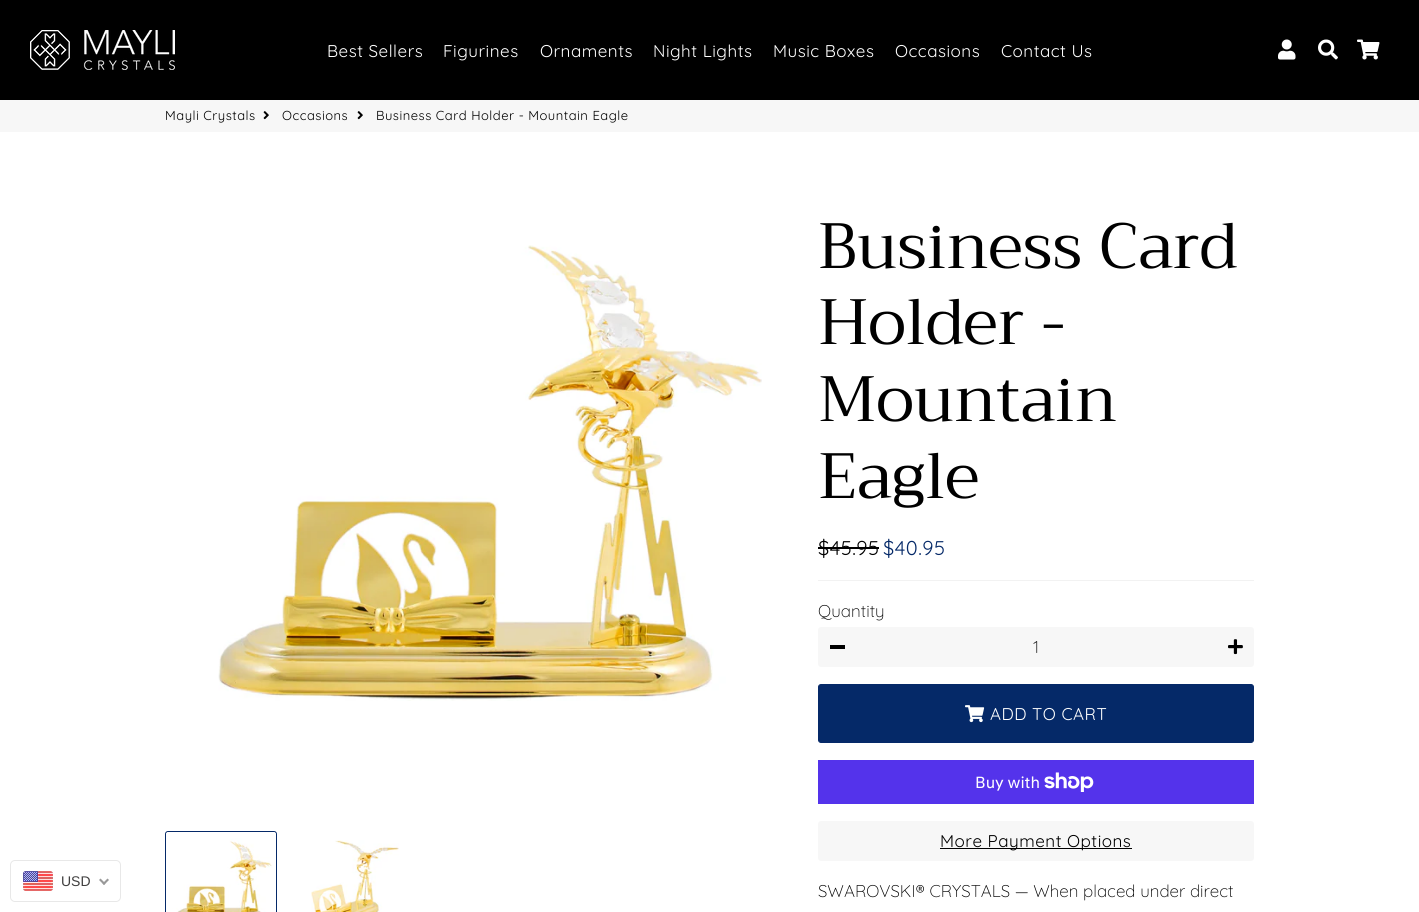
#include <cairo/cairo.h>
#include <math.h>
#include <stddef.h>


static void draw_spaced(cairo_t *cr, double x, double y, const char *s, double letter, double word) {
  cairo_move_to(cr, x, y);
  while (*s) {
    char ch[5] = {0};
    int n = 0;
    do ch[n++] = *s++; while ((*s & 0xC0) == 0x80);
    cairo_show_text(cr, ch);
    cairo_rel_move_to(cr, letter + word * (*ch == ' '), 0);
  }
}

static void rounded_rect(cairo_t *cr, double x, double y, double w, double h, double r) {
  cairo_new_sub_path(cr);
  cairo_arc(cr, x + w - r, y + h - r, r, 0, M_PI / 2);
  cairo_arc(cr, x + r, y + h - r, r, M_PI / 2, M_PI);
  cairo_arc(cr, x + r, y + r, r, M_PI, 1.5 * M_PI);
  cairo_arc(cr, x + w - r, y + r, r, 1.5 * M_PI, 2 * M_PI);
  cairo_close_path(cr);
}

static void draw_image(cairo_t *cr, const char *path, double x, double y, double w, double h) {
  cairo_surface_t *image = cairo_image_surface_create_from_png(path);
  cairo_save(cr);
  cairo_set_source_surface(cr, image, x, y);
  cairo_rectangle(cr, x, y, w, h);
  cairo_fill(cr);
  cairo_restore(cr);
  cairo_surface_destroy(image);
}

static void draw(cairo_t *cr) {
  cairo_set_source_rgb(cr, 1, 1, 1);
  cairo_paint(cr);
  rounded_rect(cr, 10.5, 860.5, 110, 41, 4.5);
  cairo_set_source_rgb(cr, 232 / 255.0, 232 / 255.0, 232 / 255.0);
  cairo_set_line_width(cr, 1);
  cairo_stroke(cr);
  draw_image(cr, "images/1.png", 23, 871, 30, 20);
  cairo_set_source_rgb(cr, 153 / 255.0, 153 / 255.0, 153 / 255.0);
  cairo_new_path(cr);
  cairo_move_to(cr, 107.5, 878.5);
  cairo_line_to(cr, 109, 880);
  cairo_line_to(cr, 104, 885);
  cairo_line_to(cr, 102.5, 883.5);
  cairo_close_path(cr);
  cairo_fill(cr);
  cairo_new_path(cr);
  cairo_move_to(cr, 100.5, 878.5);
  cairo_line_to(cr, 105.5, 883.5);
  cairo_line_to(cr, 104, 885);
  cairo_line_to(cr, 99, 880);
  cairo_close_path(cr);
  cairo_fill(cr);
  cairo_set_source_rgb(cr, 0, 0, 0);
  cairo_rectangle(cr, 0, 0, 1419, 100);
  cairo_fill(cr);
  draw_image(cr, "images/2.png", 30, 30, 145, 40);
  draw_image(cr, "images/3.png", 1278, 39, 18, 21);
  draw_image(cr, "images/4.png", 1318, 39, 20, 21);
  draw_image(cr, "images/5.png", 1357, 39, 23, 21);
  cairo_set_source_rgb(cr, 247 / 255.0, 247 / 255.0, 247 / 255.0);
  cairo_rectangle(cr, 0, 100, 1419, 32);
  cairo_fill(cr);
  draw_image(cr, "images/6.png", 263, 111, 6, 9);
  draw_image(cr, "images/6.png", 357, 111, 6, 9);
  draw_image(cr, "images/7.png", 218, 245, 544, 456);
  rounded_rect(cr, 165.5, 831.5, 111, 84, 2.5);
  cairo_set_source_rgb(cr, 5 / 255.0, 41 / 255.0, 104 / 255.0);
  cairo_stroke(cr);
  draw_image(cr, "images/8.png", 166, 832, 110, 80);
  draw_image(cr, "images/9.png", 311, 840, 88, 72);
  cairo_set_source_rgb(cr, 242 / 255.0, 242 / 255.0, 242 / 255.0);
  cairo_rectangle(cr, 818, 580, 436, 1);
  cairo_fill(cr);
  cairo_set_source_rgb(cr, 0, 0, 0);
  cairo_rectangle(cr, 818, 547, 61, 2);
  cairo_fill(cr);
  cairo_set_source_rgb(cr, 247 / 255.0, 247 / 255.0, 247 / 255.0);
  rounded_rect(cr, 818, 627, 436, 40, 3);
  cairo_fill(cr);
  cairo_set_source_rgb(cr, 0, 0, 0);
  cairo_rectangle(cr, 830, 645, 15, 4);
  cairo_fill(cr);
  draw_image(cr, "images/10.png", 1228, 639, 15, 16);
  cairo_set_source_rgb(cr, 5 / 255.0, 41 / 255.0, 104 / 255.0);
  rounded_rect(cr, 818.5, 684.5, 435, 58, 2.5);
  cairo_fill_preserve(cr);
  cairo_stroke(cr);
  draw_image(cr, "images/11.png", 965, 705, 20, 18);
  cairo_set_source_rgb(cr, 84 / 255.0, 51 / 255.0, 235 / 255.0);
  cairo_rectangle(cr, 818, 760, 436, 44);
  cairo_fill(cr);
  draw_image(cr, "images/12.png", 1044, 772, 50, 20);
  cairo_set_source_rgb(cr, 247 / 255.0, 247 / 255.0, 247 / 255.0);
  rounded_rect(cr, 818, 821, 436, 40, 3);
  cairo_fill(cr);
  cairo_set_source_rgb(cr, 0, 0, 0);
  cairo_rectangle(cr, 940, 848, 192, 1);
  cairo_fill(cr);
  cairo_select_font_face(cr, "Liberation Sans", CAIRO_FONT_SLANT_NORMAL, CAIRO_FONT_WEIGHT_NORMAL);
  cairo_set_font_size(cr, 14);
  cairo_set_source_rgb(cr, 64 / 255.0, 63 / 255.0, 63 / 255.0);
  cairo_move_to(cr, 61, 886);
  cairo_show_text(cr, "USD");
  cairo_select_font_face(cr, "Quicksand", CAIRO_FONT_SLANT_NORMAL, CAIRO_FONT_WEIGHT_NORMAL);
  cairo_set_font_size(cr, 17);
  cairo_set_source_rgb(cr, 1, 1, 1);
  draw_spaced(cr, 327, 57, "Best Sellers", 0.5, 0);
  draw_spaced(cr, 443, 57, "Figurines", 0.5, 0);
  draw_spaced(cr, 540, 57, "Ornaments", 0.5, 0);
  draw_spaced(cr, 653, 57, "Night Lights", 0.5, 0);
  draw_spaced(cr, 773, 57, "Music Boxes", 0.5, 0);
  draw_spaced(cr, 895, 57, "Occasions", 0.5, 0);
  draw_spaced(cr, 1001, 57, "Contact Us", 0.5, 0);
  cairo_set_font_size(cr, 13);
  cairo_set_source_rgb(cr, 0, 0, 0);
  draw_spaced(cr, 165, 120, "Mayli Crystals", 0.5, 0);
  draw_spaced(cr, 282, 120, "Occasions", 0.5, 0);
  draw_spaced(cr, 376, 120, "Business Card Holder - Mountain Eagle", 0.5, 0);
  cairo_select_font_face(cr, "Trirong", CAIRO_FONT_SLANT_NORMAL, CAIRO_FONT_WEIGHT_NORMAL);
  cairo_set_font_size(cr, 64);
  cairo_move_to(cr, 818, 268);
  cairo_show_text(cr, "Business Card");
  cairo_move_to(cr, 818, 344);
  cairo_show_text(cr, "Holder -");
  cairo_move_to(cr, 818, 421);
  cairo_show_text(cr, "Mountain");
  cairo_move_to(cr, 818, 498);
  cairo_show_text(cr, "Eagle");
  cairo_select_font_face(cr, "Quicksand", CAIRO_FONT_SLANT_NORMAL, CAIRO_FONT_WEIGHT_NORMAL);
  cairo_set_font_size(cr, 20);
  draw_spaced(cr, 818, 555, "$45.95", 0.5, 0);
  cairo_set_source_rgb(cr, 5 / 255.0, 41 / 255.0, 104 / 255.0);
  draw_spaced(cr, 883, 555, "$40.95", 0.5, 0);
  cairo_select_font_face(cr, "Quicksand Light", CAIRO_FONT_SLANT_NORMAL, CAIRO_FONT_WEIGHT_NORMAL);
  cairo_set_font_size(cr, 17);
  cairo_set_source_rgb(cr, 0, 0, 0);
  cairo_move_to(cr, 818, 617);
  cairo_show_text(cr, "Quantity");
  cairo_move_to(cr, 1033, 653);
  cairo_show_text(cr, "1");
  cairo_select_font_face(cr, "Quicksand", CAIRO_FONT_SLANT_NORMAL, CAIRO_FONT_WEIGHT_NORMAL);
  cairo_set_source_rgb(cr, 1, 1, 1);
  draw_spaced(cr, 990, 720, "ADD TO CART", 0.5, 0);
  cairo_select_font_face(cr, "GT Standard", CAIRO_FONT_SLANT_NORMAL, CAIRO_FONT_WEIGHT_NORMAL);
  cairo_set_font_size(cr, 16);
  cairo_move_to(cr, 975, 788);
  cairo_show_text(cr, "Buy with");
  cairo_select_font_face(cr, "Quicksand", CAIRO_FONT_SLANT_NORMAL, CAIRO_FONT_WEIGHT_NORMAL);
  cairo_set_font_size(cr, 17);
  cairo_set_source_rgb(cr, 0, 0, 0);
  draw_spaced(cr, 940, 847, "More Payment Options", 0.5, 0);
  cairo_select_font_face(cr, "Quicksand Light", CAIRO_FONT_SLANT_NORMAL, CAIRO_FONT_WEIGHT_NORMAL);
  cairo_move_to(cr, 818, 897);
  cairo_show_text(cr, "SWAROVSKI® CRYSTALS — When placed under direct");
}

int main(void) {
  cairo_surface_t *surface = cairo_image_surface_create(CAIRO_FORMAT_RGB24, 1419, 912);
  cairo_t *cr = cairo_create(surface);
  cairo_font_options_t *options = cairo_font_options_create();
  cairo_font_options_set_hint_metrics(options, CAIRO_HINT_METRICS_OFF);
  cairo_font_options_set_hint_style(options, CAIRO_HINT_STYLE_NONE);
  cairo_set_font_options(cr, options);
  cairo_set_miter_limit(cr, 4);
  draw(cr);
  cairo_surface_write_to_png(surface, "out.png");
  cairo_font_options_destroy(options);
  cairo_destroy(cr);
  cairo_surface_destroy(surface);
  return 0;
}
